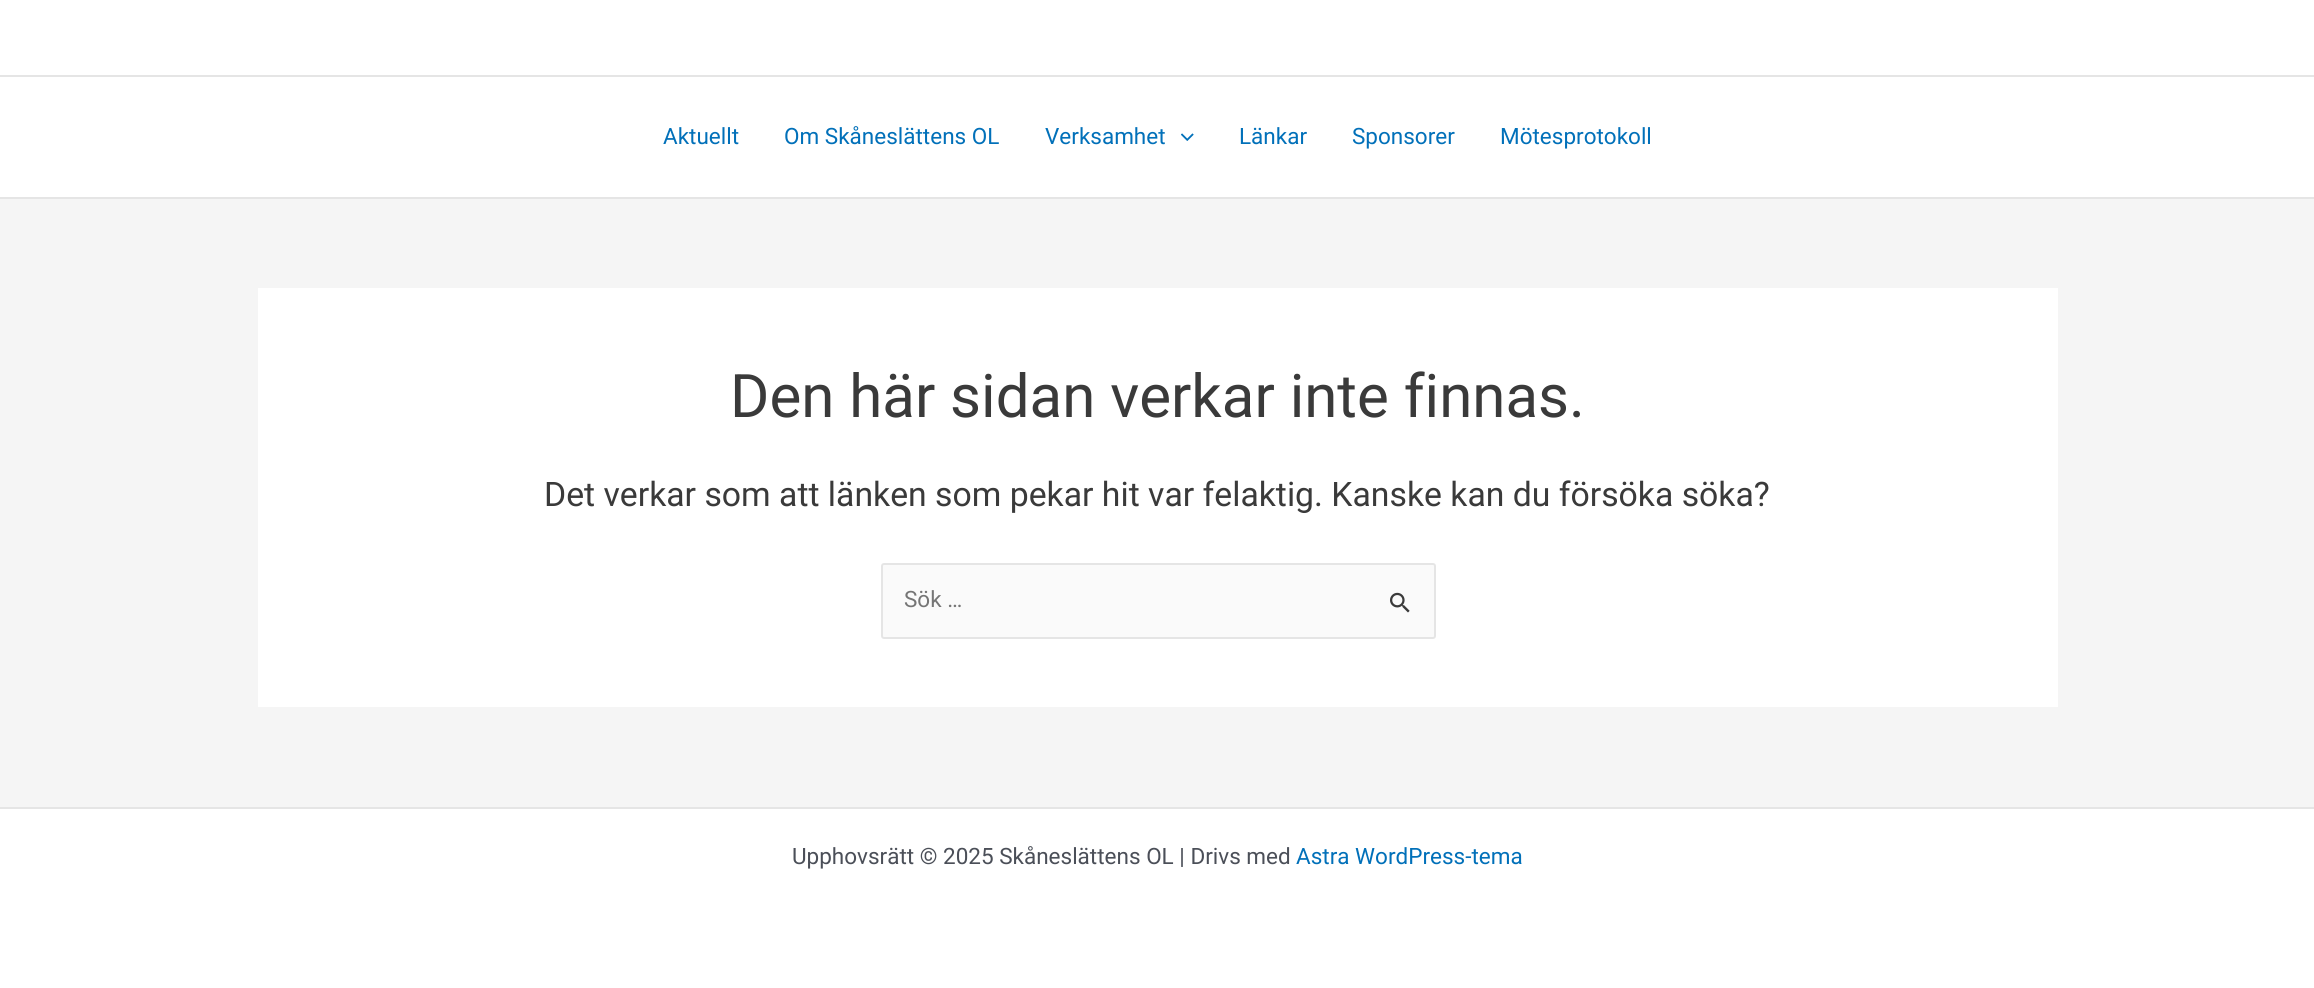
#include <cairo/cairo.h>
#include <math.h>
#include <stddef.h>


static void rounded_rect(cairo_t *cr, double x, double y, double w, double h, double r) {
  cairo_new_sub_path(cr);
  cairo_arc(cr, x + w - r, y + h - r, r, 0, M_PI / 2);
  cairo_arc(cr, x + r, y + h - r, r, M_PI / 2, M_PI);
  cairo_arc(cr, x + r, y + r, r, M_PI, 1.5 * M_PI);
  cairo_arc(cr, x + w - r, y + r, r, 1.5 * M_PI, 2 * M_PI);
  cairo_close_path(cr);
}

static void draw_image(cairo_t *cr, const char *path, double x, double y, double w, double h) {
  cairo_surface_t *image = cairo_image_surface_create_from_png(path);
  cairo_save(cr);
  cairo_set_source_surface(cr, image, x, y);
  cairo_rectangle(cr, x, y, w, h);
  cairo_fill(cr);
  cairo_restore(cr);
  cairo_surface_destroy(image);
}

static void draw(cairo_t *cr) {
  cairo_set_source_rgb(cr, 245 / 255.0, 245 / 255.0, 245 / 255.0);
  cairo_paint(cr);
  cairo_set_source_rgb(cr, 1, 1, 1);
  cairo_rectangle(cr, 0, 0, 2314, 75);
  cairo_fill(cr);
  cairo_set_source_rgb(cr, 229 / 255.0, 229 / 255.0, 229 / 255.0);
  cairo_rectangle(cr, 0, 75, 2314, 2);
  cairo_fill(cr);
  cairo_set_source_rgb(cr, 1, 1, 1);
  cairo_rectangle(cr, 0, 77, 2314, 120);
  cairo_fill(cr);
  cairo_set_source_rgb(cr, 229 / 255.0, 229 / 255.0, 229 / 255.0);
  cairo_rectangle(cr, 0, 197, 2314, 2);
  cairo_fill(cr);
  draw_image(cr, "images/1.png", 1181, 133, 13, 8);
  cairo_set_source_rgb(cr, 1, 1, 1);
  cairo_rectangle(cr, 258, 288, 1800, 419);
  cairo_fill(cr);
  cairo_set_source_rgb(cr, 250 / 255.0, 250 / 255.0, 250 / 255.0);
  rounded_rect(cr, 882, 564, 553, 74, 2);
  cairo_fill_preserve(cr);
  cairo_set_source_rgb(cr, 229 / 255.0, 229 / 255.0, 229 / 255.0);
  cairo_stroke(cr);
  draw_image(cr, "images/2.png", 1390, 592, 20, 21);
  cairo_set_source_rgb(cr, 1, 1, 1);
  cairo_rectangle(cr, 0, 809, 2314, 179);
  cairo_fill(cr);
  cairo_set_source_rgb(cr, 229 / 255.0, 229 / 255.0, 229 / 255.0);
  cairo_rectangle(cr, 0, 807, 2314, 2);
  cairo_fill(cr);
  cairo_select_font_face(cr, "Roboto", CAIRO_FONT_SLANT_NORMAL, CAIRO_FONT_WEIGHT_NORMAL);
  cairo_set_font_size(cr, 22.5);
  cairo_set_source_rgb(cr, 1 / 255.0, 112 / 255.0, 185 / 255.0);
  cairo_move_to(cr, 663, 144);
  cairo_show_text(cr, "Aktuellt");
  cairo_move_to(cr, 784, 144);
  cairo_show_text(cr, "Om Skåneslättens OL");
  cairo_move_to(cr, 1045, 144);
  cairo_show_text(cr, "Verksamhet");
  cairo_move_to(cr, 1239, 144);
  cairo_show_text(cr, "Länkar");
  cairo_move_to(cr, 1352, 144);
  cairo_show_text(cr, "Sponsorer");
  cairo_move_to(cr, 1500, 144);
  cairo_show_text(cr, "Mötesprotokoll");
  cairo_set_font_size(cr, 60);
  cairo_set_source_rgb(cr, 58 / 255.0, 58 / 255.0, 58 / 255.0);
  cairo_move_to(cr, 730, 417);
  cairo_show_text(cr, "Den här sidan verkar inte finnas.");
  cairo_set_font_size(cr, 33.75);
  cairo_move_to(cr, 544, 506);
  cairo_show_text(cr, "Det verkar som att länken som pekar hit var felaktig. Kanske kan du försöka söka?");
  cairo_set_font_size(cr, 22.5);
  cairo_set_source_rgb(cr, 117 / 255.0, 117 / 255.0, 117 / 255.0);
  cairo_move_to(cr, 904, 607);
  cairo_show_text(cr, "Sök …");
  cairo_set_source_rgb(cr, 75 / 255.0, 79 / 255.0, 88 / 255.0);
  cairo_move_to(cr, 792, 864);
  cairo_show_text(cr, "Upphovsrätt © 2025 Skåneslättens OL | Drivs med");
  cairo_set_source_rgb(cr, 1 / 255.0, 112 / 255.0, 185 / 255.0);
  cairo_move_to(cr, 1296, 864);
  cairo_show_text(cr, "Astra WordPress-tema");
}

int main(void) {
  cairo_surface_t *surface = cairo_image_surface_create(CAIRO_FORMAT_RGB24, 2314, 988);
  cairo_t *cr = cairo_create(surface);
  cairo_font_options_t *options = cairo_font_options_create();
  cairo_font_options_set_hint_metrics(options, CAIRO_HINT_METRICS_OFF);
  cairo_font_options_set_hint_style(options, CAIRO_HINT_STYLE_NONE);
  cairo_set_font_options(cr, options);
  cairo_set_miter_limit(cr, 4);
  draw(cr);
  cairo_surface_write_to_png(surface, "out.png");
  cairo_font_options_destroy(options);
  cairo_destroy(cr);
  cairo_surface_destroy(surface);
  return 0;
}
